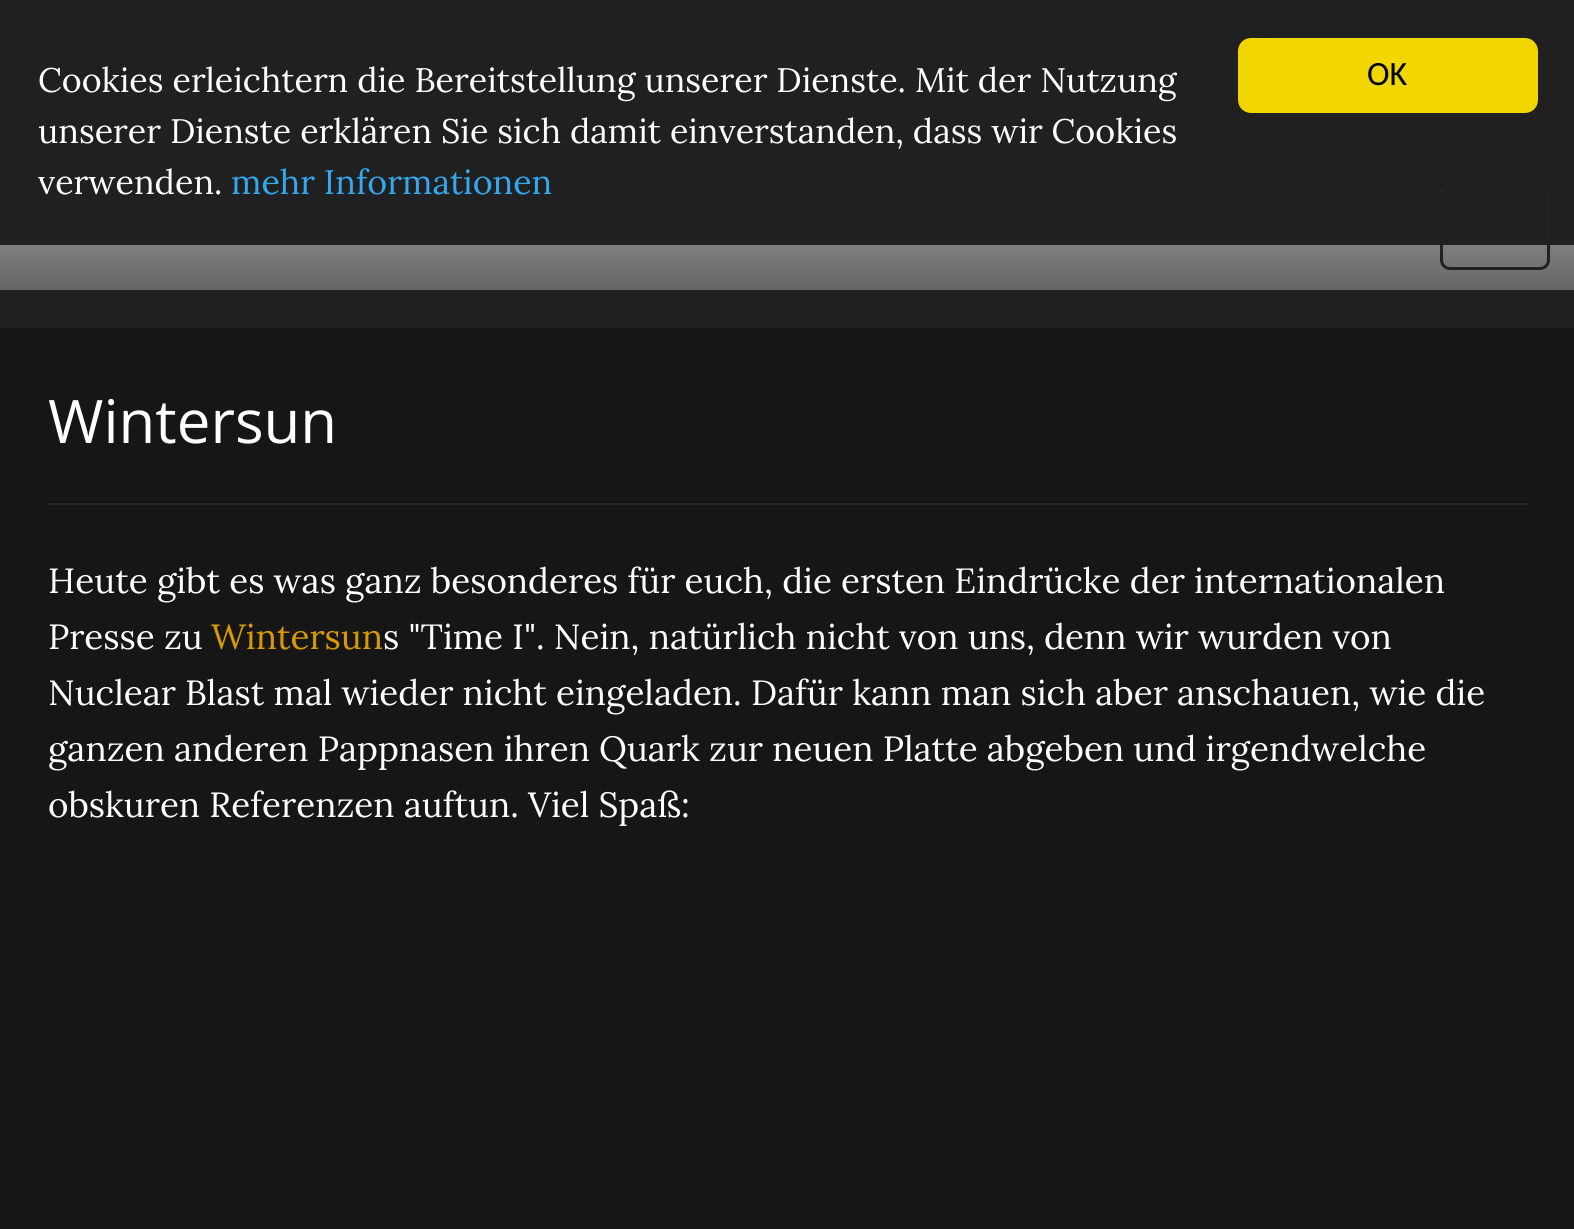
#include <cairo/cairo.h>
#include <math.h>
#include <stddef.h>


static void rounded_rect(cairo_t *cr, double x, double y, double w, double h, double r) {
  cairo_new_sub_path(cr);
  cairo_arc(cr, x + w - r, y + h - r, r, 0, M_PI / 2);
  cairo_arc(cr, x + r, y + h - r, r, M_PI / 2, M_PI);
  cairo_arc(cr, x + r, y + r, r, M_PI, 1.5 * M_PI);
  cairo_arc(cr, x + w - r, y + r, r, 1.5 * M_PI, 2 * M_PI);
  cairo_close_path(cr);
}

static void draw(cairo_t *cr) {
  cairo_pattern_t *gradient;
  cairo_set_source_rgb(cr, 32 / 255.0, 32 / 255.0, 32 / 255.0);
  cairo_paint(cr);
  cairo_set_source_rgb(cr, 241 / 255.0, 214 / 255.0, 0);
  rounded_rect(cr, 1238, 38, 300, 75, 13);
  cairo_fill(cr);
  gradient = cairo_pattern_create_linear(788, 165, 788, 290);
  cairo_pattern_add_color_stop_rgba(gradient, 0, 170 / 255.0, 170 / 255.0, 170 / 255.0, 1);
  cairo_pattern_add_color_stop_rgba(gradient, 1, 102 / 255.0, 102 / 255.0, 102 / 255.0, 1);
  cairo_set_source(cr, gradient);
  cairo_pattern_destroy(gradient);
  cairo_rectangle(cr, 0, 245, 1574, 45);
  cairo_fill(cr);
  rounded_rect(cr, 1441.5, 186.5, 107, 82, 8.5);
  cairo_set_source_rgb(cr, 34 / 255.0, 34 / 255.0, 34 / 255.0);
  cairo_set_line_width(cr, 3);
  cairo_stroke(cr);
  cairo_set_source_rgb(cr, 22 / 255.0, 22 / 255.0, 22 / 255.0);
  cairo_rectangle(cr, 0, 328, 1574, 901);
  cairo_fill(cr);
  cairo_set_source_rgb(cr, 38 / 255.0, 38 / 255.0, 38 / 255.0);
  cairo_new_path(cr);
  cairo_move_to(cr, 48, 502);
  cairo_line_to(cr, 48, 505);
  cairo_line_to(cr, 1528, 505);
  cairo_line_to(cr, 1528, 390);
  cairo_line_to(cr, 1528, 502);
  cairo_close_path(cr);
  cairo_fill(cr);
  cairo_set_source_rgb(cr, 21 / 255.0, 21 / 255.0, 21 / 255.0);
  cairo_rectangle(cr, 48, 502, 1480, 1);
  cairo_fill(cr);
  cairo_select_font_face(cr, "Lora", CAIRO_FONT_SLANT_NORMAL, CAIRO_FONT_WEIGHT_NORMAL);
  cairo_set_font_size(cr, 34);
  cairo_set_source_rgb(cr, 1, 1, 1);
  cairo_move_to(cr, 38, 92);
  cairo_show_text(cr, "Cookies erleichtern die Bereitstellung unserer Dienste. Mit der Nutzung");
  cairo_move_to(cr, 38, 143);
  cairo_show_text(cr, "unserer Dienste erklären Sie sich damit einverstanden, dass wir Cookies");
  cairo_move_to(cr, 38, 194);
  cairo_show_text(cr, "verwenden.");
  cairo_set_source_rgb(cr, 49 / 255.0, 168 / 255.0, 240 / 255.0);
  cairo_move_to(cr, 231, 194);
  cairo_show_text(cr, "mehr Informationen");
  cairo_select_font_face(cr, "Carlito", CAIRO_FONT_SLANT_NORMAL, CAIRO_FONT_WEIGHT_NORMAL);
  cairo_set_source_rgb(cr, 0, 0, 0);
  cairo_move_to(cr, 1367, 85);
  cairo_show_text(cr, "OK");
  cairo_select_font_face(cr, "Open Sans", CAIRO_FONT_SLANT_NORMAL, CAIRO_FONT_WEIGHT_NORMAL);
  cairo_set_font_size(cr, 60);
  cairo_set_source_rgb(cr, 1, 1, 1);
  cairo_move_to(cr, 48, 443);
  cairo_show_text(cr, "Wintersun");
  cairo_select_font_face(cr, "Lora", CAIRO_FONT_SLANT_NORMAL, CAIRO_FONT_WEIGHT_NORMAL);
  cairo_set_font_size(cr, 35);
  cairo_move_to(cr, 48, 593);
  cairo_show_text(cr, "Heute gibt es was ganz besonderes für euch, die ersten Eindrücke der internationalen");
  cairo_move_to(cr, 48, 649);
  cairo_show_text(cr, "Presse zu");
  cairo_set_source_rgb(cr, 217 / 255.0, 154 / 255.0, 0);
  cairo_move_to(cr, 211, 649);
  cairo_show_text(cr, "Wintersun");
  cairo_set_source_rgb(cr, 1, 1, 1);
  cairo_move_to(cr, 383, 649);
  cairo_show_text(cr, "s \"Time I\". Nein, natürlich nicht von uns, denn wir wurden von");
  cairo_move_to(cr, 48, 705);
  cairo_show_text(cr, "Nuclear Blast mal wieder nicht eingeladen. Dafür kann man sich aber anschauen, wie die");
  cairo_move_to(cr, 48, 761);
  cairo_show_text(cr, "ganzen anderen Pappnasen ihren Quark zur neuen Platte abgeben und irgendwelche");
  cairo_move_to(cr, 48, 817);
  cairo_show_text(cr, "obskuren Referenzen auftun. Viel Spaß:");
}

int main(void) {
  cairo_surface_t *surface = cairo_image_surface_create(CAIRO_FORMAT_RGB24, 1574, 1229);
  cairo_t *cr = cairo_create(surface);
  cairo_font_options_t *options = cairo_font_options_create();
  cairo_font_options_set_hint_metrics(options, CAIRO_HINT_METRICS_OFF);
  cairo_font_options_set_hint_style(options, CAIRO_HINT_STYLE_NONE);
  cairo_set_font_options(cr, options);
  cairo_set_miter_limit(cr, 4);
  draw(cr);
  cairo_surface_write_to_png(surface, "out.png");
  cairo_font_options_destroy(options);
  cairo_destroy(cr);
  cairo_surface_destroy(surface);
  return 0;
}
